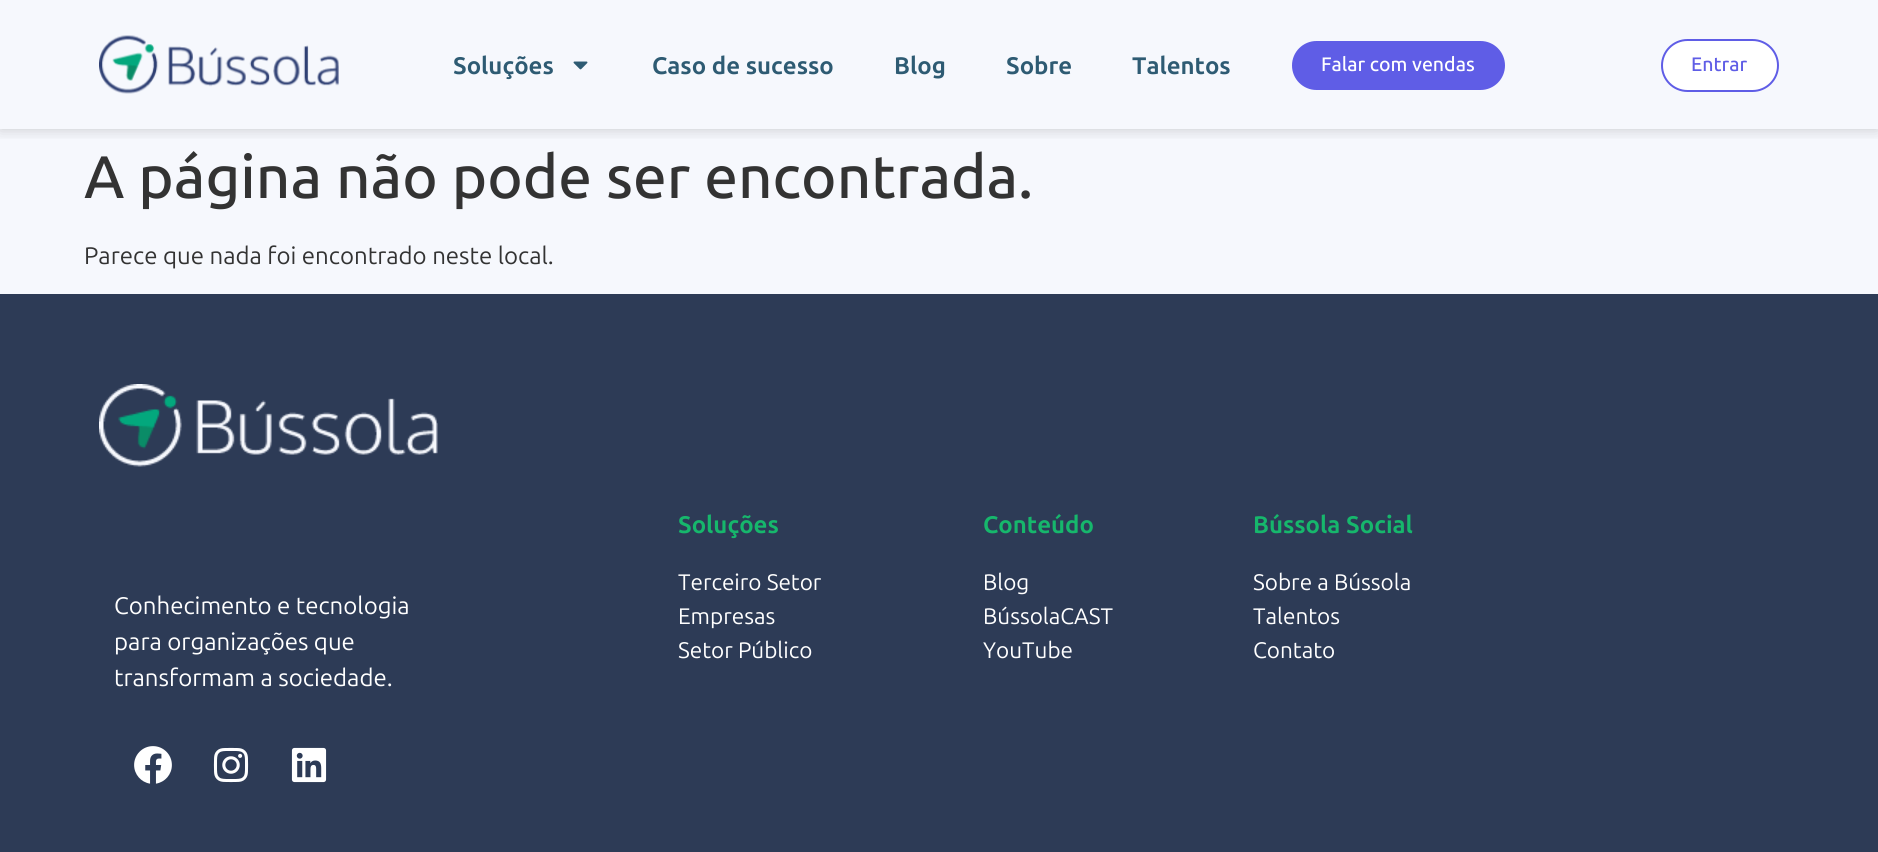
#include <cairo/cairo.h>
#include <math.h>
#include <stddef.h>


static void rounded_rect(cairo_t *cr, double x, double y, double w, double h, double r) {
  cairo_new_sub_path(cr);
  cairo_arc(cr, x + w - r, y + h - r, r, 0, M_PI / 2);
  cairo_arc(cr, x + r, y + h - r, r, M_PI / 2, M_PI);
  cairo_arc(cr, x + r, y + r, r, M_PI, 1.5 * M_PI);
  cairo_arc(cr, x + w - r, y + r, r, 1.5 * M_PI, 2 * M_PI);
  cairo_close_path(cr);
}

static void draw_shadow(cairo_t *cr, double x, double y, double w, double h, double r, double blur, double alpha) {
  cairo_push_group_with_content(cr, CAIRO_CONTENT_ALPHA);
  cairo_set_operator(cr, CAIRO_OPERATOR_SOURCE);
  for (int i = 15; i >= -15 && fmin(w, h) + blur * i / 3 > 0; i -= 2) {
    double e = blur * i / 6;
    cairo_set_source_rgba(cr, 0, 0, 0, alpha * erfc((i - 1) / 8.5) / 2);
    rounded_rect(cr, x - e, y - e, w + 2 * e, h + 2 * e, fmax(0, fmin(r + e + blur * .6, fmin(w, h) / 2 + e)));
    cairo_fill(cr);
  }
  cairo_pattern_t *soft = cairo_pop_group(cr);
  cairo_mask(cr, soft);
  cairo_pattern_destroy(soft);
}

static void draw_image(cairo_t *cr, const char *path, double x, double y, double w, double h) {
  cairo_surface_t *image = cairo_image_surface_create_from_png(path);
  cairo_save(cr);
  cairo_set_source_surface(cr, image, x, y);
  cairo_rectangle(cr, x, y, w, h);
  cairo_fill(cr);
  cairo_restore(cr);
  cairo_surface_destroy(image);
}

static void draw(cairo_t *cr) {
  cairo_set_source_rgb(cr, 246 / 255.0, 248 / 255.0, 253 / 255.0);
  cairo_paint(cr);
  cairo_save(cr);
  cairo_rectangle(cr, 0, 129, 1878, 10);
  cairo_clip(cr);
  cairo_set_source_rgb(cr, 0, 0, 0);
  draw_shadow(cr, 0, 0, 1878, 129, 0, 7.5, 0.2);
  cairo_restore(cr);
  draw_image(cr, "images/1.png", 99, 35, 240, 59);
  draw_image(cr, "images/2.png", 573, 61, 15, 9);
  cairo_set_source_rgb(cr, 95 / 255.0, 93 / 255.0, 230 / 255.0);
  rounded_rect(cr, 1292, 41, 213, 49, 24.5);
  cairo_fill(cr);
  cairo_set_source_rgb(cr, 1, 1, 1);
  rounded_rect(cr, 1662, 40, 116, 51, 25.5);
  cairo_fill_preserve(cr);
  cairo_set_source_rgb(cr, 95 / 255.0, 93 / 255.0, 230 / 255.0);
  cairo_stroke(cr);
  cairo_set_source_rgb(cr, 45 / 255.0, 59 / 255.0, 86 / 255.0);
  cairo_rectangle(cr, 0, 294, 1878, 558);
  cairo_fill(cr);
  draw_image(cr, "images/3.png", 99, 384, 339, 83);
  draw_image(cr, "images/4.png", 134, 746, 38, 38);
  draw_image(cr, "images/5.png", 213, 747, 36, 36);
  draw_image(cr, "images/6.png", 291, 747, 36, 36);
  cairo_select_font_face(cr, "Ubuntu", CAIRO_FONT_SLANT_NORMAL, CAIRO_FONT_WEIGHT_BOLD);
  cairo_set_font_size(cr, 24);
  cairo_set_source_rgb(cr, 46 / 255.0, 91 / 255.0, 115 / 255.0);
  cairo_move_to(cr, 453, 74);
  cairo_show_text(cr, "Soluções");
  cairo_move_to(cr, 652, 74);
  cairo_show_text(cr, "Caso de sucesso");
  cairo_move_to(cr, 894, 74);
  cairo_show_text(cr, "Blog");
  cairo_move_to(cr, 1006, 74);
  cairo_show_text(cr, "Sobre");
  cairo_move_to(cr, 1132, 74);
  cairo_show_text(cr, "Talentos");
  cairo_select_font_face(cr, "Ubuntu Medium", CAIRO_FONT_SLANT_NORMAL, CAIRO_FONT_WEIGHT_NORMAL);
  cairo_set_font_size(cr, 19.5);
  cairo_set_source_rgb(cr, 1, 1, 1);
  cairo_move_to(cr, 1321, 71);
  cairo_show_text(cr, "Falar com vendas");
  cairo_set_source_rgb(cr, 95 / 255.0, 93 / 255.0, 230 / 255.0);
  cairo_move_to(cr, 1691, 71);
  cairo_show_text(cr, "Entrar");
  cairo_set_font_size(cr, 60);
  cairo_set_source_rgb(cr, 51 / 255.0, 51 / 255.0, 51 / 255.0);
  cairo_move_to(cr, 84, 198);
  cairo_show_text(cr, "A página não pode ser encontrada.");
  cairo_select_font_face(cr, "Ubuntu", CAIRO_FONT_SLANT_NORMAL, CAIRO_FONT_WEIGHT_NORMAL);
  cairo_set_font_size(cr, 24);
  cairo_move_to(cr, 84, 264);
  cairo_show_text(cr, "Parece que nada foi encontrado neste local.");
  cairo_set_source_rgb(cr, 1, 1, 1);
  cairo_move_to(cr, 114, 614);
  cairo_show_text(cr, "Conhecimento e tecnologia");
  cairo_move_to(cr, 114, 650);
  cairo_show_text(cr, "para organizações que");
  cairo_move_to(cr, 114, 686);
  cairo_show_text(cr, "transformam a sociedade.");
  cairo_select_font_face(cr, "Ubuntu", CAIRO_FONT_SLANT_NORMAL, CAIRO_FONT_WEIGHT_BOLD);
  cairo_set_source_rgb(cr, 22 / 255.0, 183 / 255.0, 108 / 255.0);
  cairo_move_to(cr, 678, 533);
  cairo_show_text(cr, "Soluções");
  cairo_select_font_face(cr, "Ubuntu", CAIRO_FONT_SLANT_NORMAL, CAIRO_FONT_WEIGHT_NORMAL);
  cairo_set_font_size(cr, 22.5);
  cairo_set_source_rgb(cr, 1, 1, 1);
  cairo_move_to(cr, 678, 590);
  cairo_show_text(cr, "Terceiro Setor");
  cairo_move_to(cr, 678, 624);
  cairo_show_text(cr, "Empresas");
  cairo_move_to(cr, 678, 658);
  cairo_show_text(cr, "Setor Público");
  cairo_select_font_face(cr, "Ubuntu", CAIRO_FONT_SLANT_NORMAL, CAIRO_FONT_WEIGHT_BOLD);
  cairo_set_font_size(cr, 24);
  cairo_set_source_rgb(cr, 22 / 255.0, 183 / 255.0, 108 / 255.0);
  cairo_move_to(cr, 983, 533);
  cairo_show_text(cr, "Conteúdo");
  cairo_select_font_face(cr, "Ubuntu", CAIRO_FONT_SLANT_NORMAL, CAIRO_FONT_WEIGHT_NORMAL);
  cairo_set_font_size(cr, 22.5);
  cairo_set_source_rgb(cr, 1, 1, 1);
  cairo_move_to(cr, 983, 590);
  cairo_show_text(cr, "Blog");
  cairo_move_to(cr, 983, 624);
  cairo_show_text(cr, "BússolaCAST");
  cairo_move_to(cr, 983, 658);
  cairo_show_text(cr, "YouTube");
  cairo_select_font_face(cr, "Ubuntu", CAIRO_FONT_SLANT_NORMAL, CAIRO_FONT_WEIGHT_BOLD);
  cairo_set_font_size(cr, 24);
  cairo_set_source_rgb(cr, 22 / 255.0, 183 / 255.0, 108 / 255.0);
  cairo_move_to(cr, 1253, 533);
  cairo_show_text(cr, "Bússola Social");
  cairo_select_font_face(cr, "Ubuntu", CAIRO_FONT_SLANT_NORMAL, CAIRO_FONT_WEIGHT_NORMAL);
  cairo_set_font_size(cr, 22.5);
  cairo_set_source_rgb(cr, 1, 1, 1);
  cairo_move_to(cr, 1253, 590);
  cairo_show_text(cr, "Sobre a Bússola");
  cairo_move_to(cr, 1253, 624);
  cairo_show_text(cr, "Talentos");
  cairo_move_to(cr, 1253, 658);
  cairo_show_text(cr, "Contato");
}

int main(void) {
  cairo_surface_t *surface = cairo_image_surface_create(CAIRO_FORMAT_RGB24, 1878, 852);
  cairo_t *cr = cairo_create(surface);
  cairo_font_options_t *options = cairo_font_options_create();
  cairo_font_options_set_hint_metrics(options, CAIRO_HINT_METRICS_OFF);
  cairo_font_options_set_hint_style(options, CAIRO_HINT_STYLE_NONE);
  cairo_set_font_options(cr, options);
  cairo_set_miter_limit(cr, 4);
  draw(cr);
  cairo_surface_write_to_png(surface, "out.png");
  cairo_font_options_destroy(options);
  cairo_destroy(cr);
  cairo_surface_destroy(surface);
  return 0;
}
